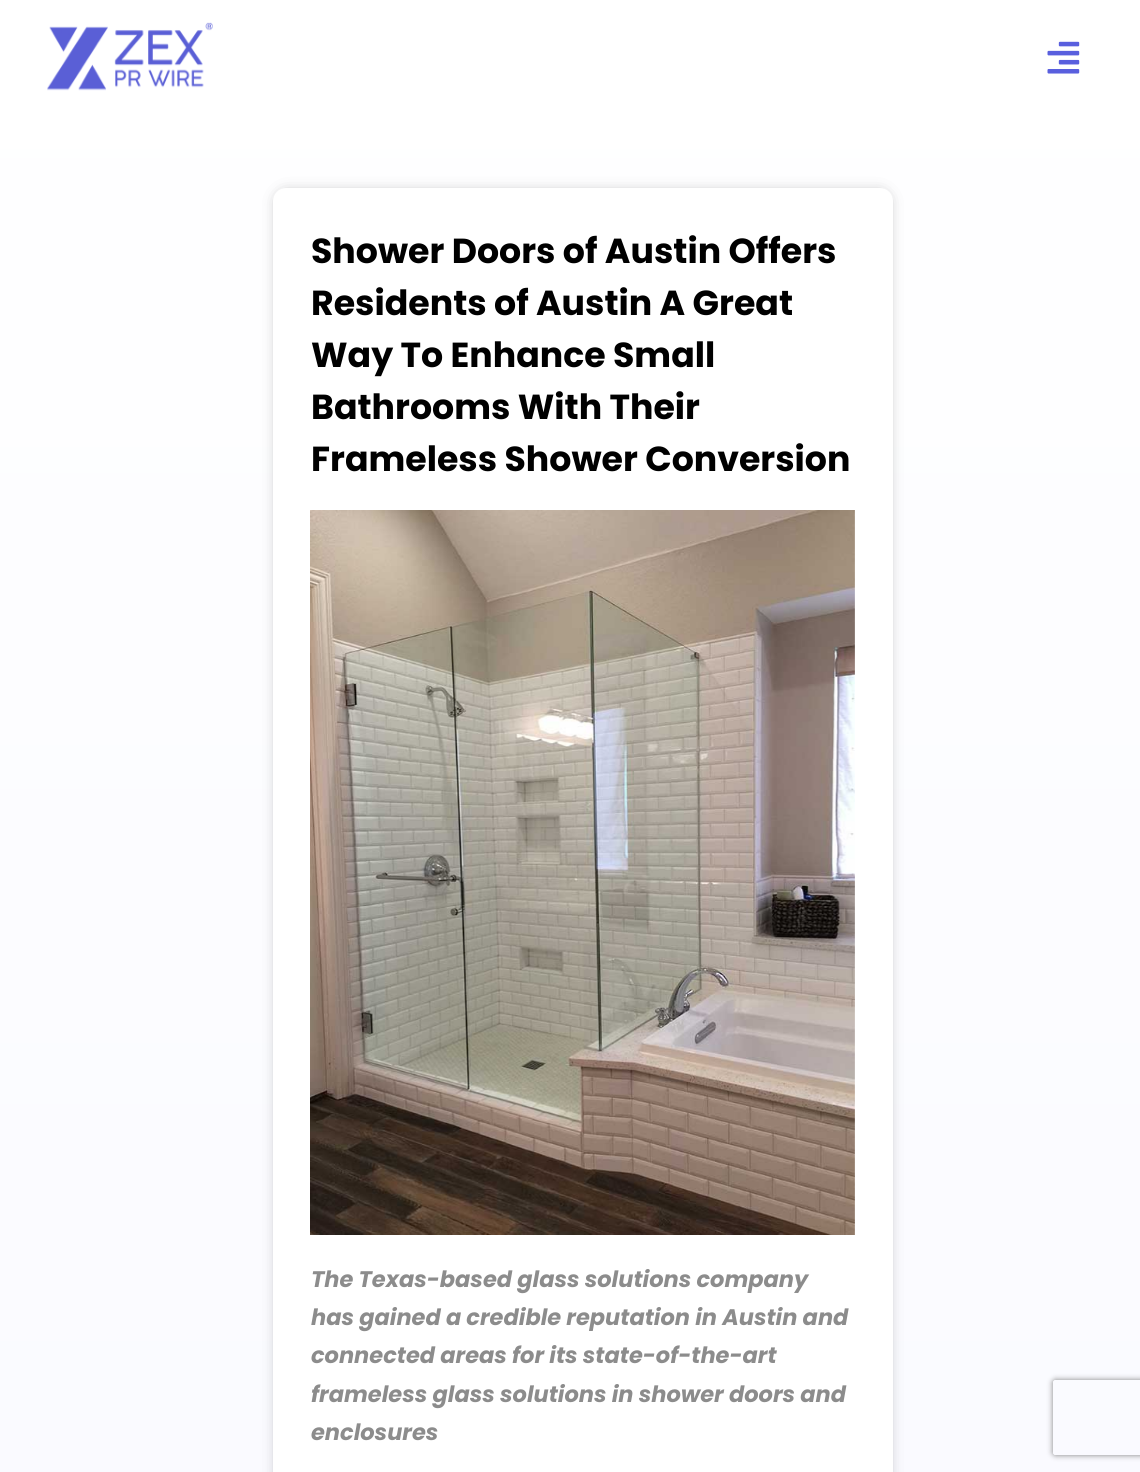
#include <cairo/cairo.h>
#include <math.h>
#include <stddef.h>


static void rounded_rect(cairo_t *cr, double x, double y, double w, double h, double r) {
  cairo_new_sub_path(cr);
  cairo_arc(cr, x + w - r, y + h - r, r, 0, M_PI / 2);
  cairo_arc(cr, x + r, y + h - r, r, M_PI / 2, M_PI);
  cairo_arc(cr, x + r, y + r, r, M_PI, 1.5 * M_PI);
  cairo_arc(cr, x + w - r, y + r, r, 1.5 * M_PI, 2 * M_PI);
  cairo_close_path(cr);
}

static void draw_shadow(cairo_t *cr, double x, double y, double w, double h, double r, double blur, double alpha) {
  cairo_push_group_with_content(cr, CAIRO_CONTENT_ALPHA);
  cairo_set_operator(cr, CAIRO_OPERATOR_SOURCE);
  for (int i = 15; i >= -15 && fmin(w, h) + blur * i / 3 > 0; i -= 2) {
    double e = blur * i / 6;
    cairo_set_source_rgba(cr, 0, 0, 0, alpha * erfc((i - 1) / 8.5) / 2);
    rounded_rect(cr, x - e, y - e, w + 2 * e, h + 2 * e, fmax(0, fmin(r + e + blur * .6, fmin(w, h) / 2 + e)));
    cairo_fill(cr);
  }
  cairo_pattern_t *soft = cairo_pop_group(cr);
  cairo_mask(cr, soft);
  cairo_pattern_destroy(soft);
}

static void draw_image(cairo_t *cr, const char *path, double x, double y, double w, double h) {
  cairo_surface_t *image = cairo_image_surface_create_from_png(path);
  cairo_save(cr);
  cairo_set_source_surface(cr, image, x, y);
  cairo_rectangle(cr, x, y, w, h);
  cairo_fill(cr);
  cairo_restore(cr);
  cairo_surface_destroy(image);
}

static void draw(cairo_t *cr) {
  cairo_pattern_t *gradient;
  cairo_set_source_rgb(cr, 1, 1, 1);
  cairo_paint(cr);
  gradient = cairo_pattern_create_linear(570, 0, 570, 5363);
  cairo_pattern_add_color_stop_rgba(gradient, 0, 1, 1, 1, 1);
  cairo_pattern_add_color_stop_rgba(gradient, 1, 237 / 255.0, 238 / 255.0, 1, 1);
  cairo_set_source(cr, gradient);
  cairo_pattern_destroy(gradient);
  rounded_rect(cr, 0, 0, 1140, 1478, 6);
  cairo_fill(cr);
  draw_image(cr, "images/1.png", 47, 22, 166, 69);
  draw_image(cr, "images/2.png", 1047, 41, 33, 33);
  cairo_set_source_rgb(cr, 51 / 255.0, 51 / 255.0, 51 / 255.0);
  draw_shadow(cr, 278, 193, 610, 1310, 8, 7.5, 0.39);
  cairo_set_source_rgb(cr, 1, 1, 1);
  rounded_rect(cr, 273, 188, 620, 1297, 13);
  cairo_fill(cr);
  draw_image(cr, "images/3.png", 310, 510, 545, 725);
  cairo_save(cr);
  cairo_set_fill_rule(cr, CAIRO_FILL_RULE_EVEN_ODD);
  cairo_new_path(cr);
  cairo_move_to(cr, 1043, 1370);
  cairo_line_to(cr, 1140, 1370);
  cairo_line_to(cr, 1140, 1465);
  cairo_line_to(cr, 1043, 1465);
  cairo_close_path(cr);
  cairo_move_to(cr, 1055.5, 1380);
  cairo_line_to(cr, 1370.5, 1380);
  cairo_curve_to(cr, 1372, 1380, 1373, 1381, 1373, 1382.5);
  cairo_line_to(cr, 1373, 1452.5);
  cairo_curve_to(cr, 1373, 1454, 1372, 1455, 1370.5, 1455);
  cairo_line_to(cr, 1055.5, 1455);
  cairo_curve_to(cr, 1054, 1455, 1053, 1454, 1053, 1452.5);
  cairo_line_to(cr, 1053, 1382.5);
  cairo_curve_to(cr, 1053, 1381, 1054, 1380, 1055.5, 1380);
  cairo_close_path(cr);
  cairo_clip(cr);
  cairo_set_source_rgb(cr, 128 / 255.0, 128 / 255.0, 128 / 255.0);
  draw_shadow(cr, 1053, 1380, 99, 75, 2.5, 3, 1);
  cairo_restore(cr);
  cairo_select_font_face(cr, "Poppins", CAIRO_FONT_SLANT_NORMAL, CAIRO_FONT_WEIGHT_BOLD);
  cairo_set_font_size(cr, 34.75);
  cairo_set_source_rgb(cr, 0, 0, 0);
  cairo_move_to(cr, 311, 263);
  cairo_show_text(cr, "Shower Doors of Austin Offers");
  cairo_move_to(cr, 311, 315);
  cairo_show_text(cr, "Residents of Austin A Great");
  cairo_move_to(cr, 311, 367);
  cairo_show_text(cr, "Way To Enhance Small");
  cairo_move_to(cr, 311, 419);
  cairo_show_text(cr, "Bathrooms With Their");
  cairo_move_to(cr, 311, 471);
  cairo_show_text(cr, "Frameless Shower Conversion");
  cairo_select_font_face(cr, "Poppins", CAIRO_FONT_SLANT_ITALIC, CAIRO_FONT_WEIGHT_BOLD);
  cairo_set_font_size(cr, 22.5);
  cairo_set_source_rgb(cr, 140 / 255.0, 140 / 255.0, 140 / 255.0);
  cairo_move_to(cr, 311, 1287);
  cairo_show_text(cr, "The Texas-based glass solutions company");
  cairo_move_to(cr, 311, 1325);
  cairo_show_text(cr, "has gained a credible reputation in Austin and");
  cairo_move_to(cr, 311, 1363);
  cairo_show_text(cr, "connected areas for its state-of-the-art");
  cairo_move_to(cr, 311, 1402);
  cairo_show_text(cr, "frameless glass solutions in shower doors and");
  cairo_move_to(cr, 311, 1440);
  cairo_show_text(cr, "enclosures");
}

int main(void) {
  cairo_surface_t *surface = cairo_image_surface_create(CAIRO_FORMAT_RGB24, 1140, 1472);
  cairo_t *cr = cairo_create(surface);
  cairo_font_options_t *options = cairo_font_options_create();
  cairo_font_options_set_hint_metrics(options, CAIRO_HINT_METRICS_OFF);
  cairo_font_options_set_hint_style(options, CAIRO_HINT_STYLE_NONE);
  cairo_set_font_options(cr, options);
  cairo_set_miter_limit(cr, 4);
  draw(cr);
  cairo_surface_write_to_png(surface, "out.png");
  cairo_font_options_destroy(options);
  cairo_destroy(cr);
  cairo_surface_destroy(surface);
  return 0;
}
